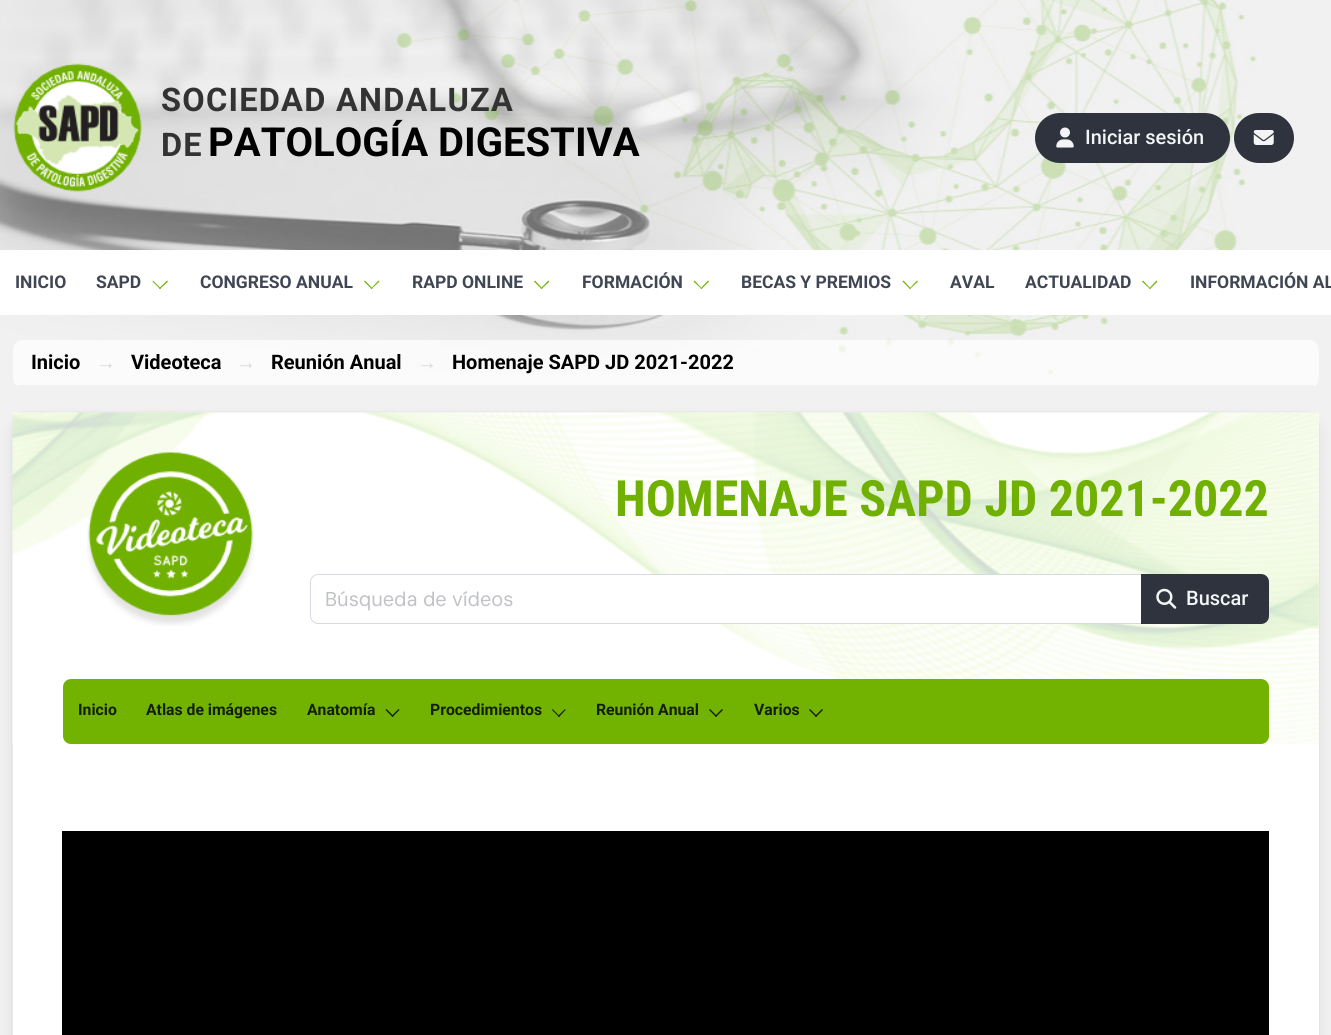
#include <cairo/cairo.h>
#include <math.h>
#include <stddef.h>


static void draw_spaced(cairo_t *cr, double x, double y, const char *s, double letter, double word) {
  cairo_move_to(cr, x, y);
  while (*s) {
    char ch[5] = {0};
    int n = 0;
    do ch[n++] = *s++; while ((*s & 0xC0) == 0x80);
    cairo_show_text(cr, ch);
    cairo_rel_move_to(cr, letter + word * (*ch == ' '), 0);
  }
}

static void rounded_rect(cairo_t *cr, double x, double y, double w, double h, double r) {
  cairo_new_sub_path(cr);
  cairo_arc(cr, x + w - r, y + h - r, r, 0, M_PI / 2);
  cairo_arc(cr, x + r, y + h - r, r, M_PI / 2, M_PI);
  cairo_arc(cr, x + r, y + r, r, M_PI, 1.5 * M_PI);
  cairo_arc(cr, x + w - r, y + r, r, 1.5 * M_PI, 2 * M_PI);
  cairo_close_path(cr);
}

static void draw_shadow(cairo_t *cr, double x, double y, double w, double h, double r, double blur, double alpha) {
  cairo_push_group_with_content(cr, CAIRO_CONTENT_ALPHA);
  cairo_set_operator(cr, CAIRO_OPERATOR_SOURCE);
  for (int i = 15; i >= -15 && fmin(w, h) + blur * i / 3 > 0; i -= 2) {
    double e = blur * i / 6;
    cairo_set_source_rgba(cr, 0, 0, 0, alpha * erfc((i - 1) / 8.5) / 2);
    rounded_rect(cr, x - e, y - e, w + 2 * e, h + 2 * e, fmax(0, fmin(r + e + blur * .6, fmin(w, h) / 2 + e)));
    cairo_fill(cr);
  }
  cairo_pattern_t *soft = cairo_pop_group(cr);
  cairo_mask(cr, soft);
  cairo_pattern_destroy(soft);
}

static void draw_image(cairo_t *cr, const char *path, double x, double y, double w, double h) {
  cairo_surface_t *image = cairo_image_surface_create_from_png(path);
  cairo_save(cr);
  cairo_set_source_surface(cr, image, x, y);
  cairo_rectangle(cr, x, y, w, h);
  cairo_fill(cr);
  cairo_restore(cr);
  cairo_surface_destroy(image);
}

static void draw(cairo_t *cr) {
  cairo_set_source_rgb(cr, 241 / 255.0, 241 / 255.0, 241 / 255.0);
  cairo_paint(cr);
  draw_image(cr, "images/1.png", 0, 0, 1257, 375);
  draw_image(cr, "images/2.png", 13, 63, 129, 129);
  cairo_set_source_rgb(cr, 46 / 255.0, 51 / 255.0, 61 / 255.0);
  rounded_rect(cr, 1035, 113, 195, 50, 25);
  cairo_fill(cr);
  draw_image(cr, "images/3.png", 1056, 127, 18, 21);
  rounded_rect(cr, 1234, 113, 60, 50, 25);
  cairo_fill(cr);
  draw_image(cr, "images/4.png", 1253, 130, 21, 15);
  cairo_set_source_rgb(cr, 1, 1, 1);
  cairo_rectangle(cr, 0, 250, 1331, 65);
  cairo_fill(cr);
  cairo_set_source_rgb(cr, 113 / 255.0, 179 / 255.0, 0);
  cairo_new_path(cr);
  cairo_move_to(cr, 159, 288.5);
  cairo_line_to(cr, 167, 280.5);
  cairo_line_to(cr, 168, 281.5);
  cairo_line_to(cr, 160, 289);
  cairo_close_path(cr);
  cairo_fill(cr);
  cairo_new_path(cr);
  cairo_move_to(cr, 152.5, 281.5);
  cairo_line_to(cr, 153, 280.5);
  cairo_line_to(cr, 161, 288.5);
  cairo_line_to(cr, 160, 289);
  cairo_close_path(cr);
  cairo_fill(cr);
  cairo_new_path(cr);
  cairo_move_to(cr, 371, 288.5);
  cairo_line_to(cr, 378.5, 280.5);
  cairo_line_to(cr, 379.5, 281.5);
  cairo_line_to(cr, 371.5, 289);
  cairo_close_path(cr);
  cairo_fill(cr);
  cairo_new_path(cr);
  cairo_move_to(cr, 364, 281.5);
  cairo_line_to(cr, 365, 280.5);
  cairo_line_to(cr, 372.5, 288.5);
  cairo_line_to(cr, 371.5, 289);
  cairo_close_path(cr);
  cairo_fill(cr);
  cairo_new_path(cr);
  cairo_move_to(cr, 540.5, 288.5);
  cairo_line_to(cr, 548.5, 280.5);
  cairo_line_to(cr, 549.5, 281.5);
  cairo_line_to(cr, 541.5, 289);
  cairo_close_path(cr);
  cairo_fill(cr);
  cairo_new_path(cr);
  cairo_move_to(cr, 534, 281.5);
  cairo_line_to(cr, 535, 280.5);
  cairo_line_to(cr, 542.5, 288.5);
  cairo_line_to(cr, 541.5, 289);
  cairo_close_path(cr);
  cairo_fill(cr);
  cairo_new_path(cr);
  cairo_move_to(cr, 700.5, 288.5);
  cairo_line_to(cr, 708, 280.5);
  cairo_line_to(cr, 709, 281.5);
  cairo_line_to(cr, 701.5, 289);
  cairo_close_path(cr);
  cairo_fill(cr);
  cairo_new_path(cr);
  cairo_move_to(cr, 693.5, 281.5);
  cairo_line_to(cr, 694.5, 280.5);
  cairo_line_to(cr, 702, 288.5);
  cairo_line_to(cr, 701.5, 289);
  cairo_close_path(cr);
  cairo_fill(cr);
  cairo_new_path(cr);
  cairo_move_to(cr, 909.5, 288.5);
  cairo_line_to(cr, 917, 280.5);
  cairo_line_to(cr, 918, 281.5);
  cairo_line_to(cr, 910, 289);
  cairo_close_path(cr);
  cairo_fill(cr);
  cairo_new_path(cr);
  cairo_move_to(cr, 902.5, 281.5);
  cairo_line_to(cr, 903.5, 280.5);
  cairo_line_to(cr, 911, 288.5);
  cairo_line_to(cr, 910, 289);
  cairo_close_path(cr);
  cairo_fill(cr);
  cairo_new_path(cr);
  cairo_move_to(cr, 1149, 288.5);
  cairo_line_to(cr, 1156.5, 280.5);
  cairo_line_to(cr, 1157.5, 281.5);
  cairo_line_to(cr, 1150, 289);
  cairo_close_path(cr);
  cairo_fill(cr);
  cairo_new_path(cr);
  cairo_move_to(cr, 1142, 281.5);
  cairo_line_to(cr, 1143, 280.5);
  cairo_line_to(cr, 1150.5, 288.5);
  cairo_line_to(cr, 1150, 289);
  cairo_close_path(cr);
  cairo_fill(cr);
  cairo_set_source_rgba(cr, 1, 1, 1, 0.7);
  rounded_rect(cr, 13, 340, 1306, 48, 10);
  cairo_fill(cr);
  cairo_set_source_rgb(cr, 241 / 255.0, 241 / 255.0, 241 / 255.0);
  cairo_rectangle(cr, 18, 385, 1296, 3);
  cairo_fill(cr);
  rounded_rect(cr, 11.5, 411.5, 1308, 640, 15.5);
  cairo_set_source_rgb(cr, 236 / 255.0, 236 / 255.0, 236 / 255.0);
  cairo_set_line_width(cr, 1);
  cairo_stroke(cr);
  cairo_set_source_rgb(cr, 9 / 255.0, 10 / 255.0, 12 / 255.0);
  draw_shadow(cr, 15, 424, 1301, 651, 13, 9, 0.1);
  cairo_set_source_rgb(cr, 1, 1, 1);
  cairo_rectangle(cr, 13, 413, 1306, 622);
  cairo_fill(cr);
  draw_image(cr, "images/5.png", 12, 412, 1307, 332);
  draw_image(cr, "images/6.png", 87, 452, 167, 174);
  cairo_new_path(cr);
  cairo_move_to(cr, 318, 574.5);
  cairo_line_to(cr, 1142.5, 574.5);
  cairo_line_to(cr, 1142.5, 623.5);
  cairo_line_to(cr, 318, 623.5);
  cairo_curve_to(cr, 314, 623.5, 310.5, 620, 310.5, 616);
  cairo_line_to(cr, 310.5, 582);
  cairo_curve_to(cr, 310.5, 578, 314, 574.5, 318, 574.5);
  cairo_close_path(cr);
  cairo_fill_preserve(cr);
  cairo_set_source_rgb(cr, 214 / 255.0, 217 / 255.0, 224 / 255.0);
  cairo_stroke(cr);
  cairo_set_source_rgb(cr, 46 / 255.0, 51 / 255.0, 61 / 255.0);
  cairo_new_path(cr);
  cairo_move_to(cr, 1141, 574);
  cairo_line_to(cr, 1261, 574);
  cairo_curve_to(cr, 1265.5, 574, 1269, 577.5, 1269, 582);
  cairo_line_to(cr, 1269, 616);
  cairo_curve_to(cr, 1269, 620.5, 1265.5, 624, 1261, 624);
  cairo_line_to(cr, 1141, 624);
  cairo_close_path(cr);
  cairo_fill(cr);
  draw_image(cr, "images/7.png", 1156, 588, 21, 21);
  cairo_set_source_rgb(cr, 113 / 255.0, 179 / 255.0, 0);
  rounded_rect(cr, 63, 679, 1206, 65, 8);
  cairo_fill(cr);
  cairo_set_source_rgb(cr, 19 / 255.0, 31 / 255.0, 0);
  cairo_new_path(cr);
  cairo_move_to(cr, 391.5, 716);
  cairo_line_to(cr, 398.5, 709);
  cairo_line_to(cr, 399.5, 710);
  cairo_line_to(cr, 392.5, 717);
  cairo_close_path(cr);
  cairo_fill(cr);
  cairo_new_path(cr);
  cairo_move_to(cr, 385.5, 710);
  cairo_line_to(cr, 386.5, 709);
  cairo_line_to(cr, 393.5, 716);
  cairo_line_to(cr, 392.5, 717);
  cairo_close_path(cr);
  cairo_fill(cr);
  cairo_new_path(cr);
  cairo_move_to(cr, 558, 716);
  cairo_line_to(cr, 565, 709);
  cairo_line_to(cr, 565.5, 710);
  cairo_line_to(cr, 559, 717);
  cairo_close_path(cr);
  cairo_fill(cr);
  cairo_new_path(cr);
  cairo_move_to(cr, 552, 710);
  cairo_line_to(cr, 552.5, 709);
  cairo_line_to(cr, 559.5, 716);
  cairo_line_to(cr, 559, 717);
  cairo_close_path(cr);
  cairo_fill(cr);
  cairo_new_path(cr);
  cairo_move_to(cr, 715, 716);
  cairo_line_to(cr, 722, 709);
  cairo_line_to(cr, 723, 710);
  cairo_line_to(cr, 716, 717);
  cairo_close_path(cr);
  cairo_fill(cr);
  cairo_new_path(cr);
  cairo_move_to(cr, 709, 710);
  cairo_line_to(cr, 710, 709);
  cairo_line_to(cr, 717, 716);
  cairo_line_to(cr, 716, 717);
  cairo_close_path(cr);
  cairo_fill(cr);
  cairo_new_path(cr);
  cairo_move_to(cr, 815, 716);
  cairo_line_to(cr, 822, 709);
  cairo_line_to(cr, 823, 710);
  cairo_line_to(cr, 816, 717);
  cairo_close_path(cr);
  cairo_fill(cr);
  cairo_new_path(cr);
  cairo_move_to(cr, 809, 710);
  cairo_line_to(cr, 810, 709);
  cairo_line_to(cr, 817, 716);
  cairo_line_to(cr, 816, 717);
  cairo_close_path(cr);
  cairo_fill(cr);
  cairo_set_source_rgb(cr, 0, 0, 0);
  cairo_rectangle(cr, 62, 831, 1207, 204);
  cairo_fill(cr);
  cairo_select_font_face(cr, "Roboto", CAIRO_FONT_SLANT_NORMAL, CAIRO_FONT_WEIGHT_BOLD);
  cairo_set_font_size(cr, 32.5);
  cairo_set_source_rgb(cr, 51 / 255.0, 51 / 255.0, 51 / 255.0);
  draw_spaced(cr, 161, 111, "SOCIEDAD ANDALUZA", 1.25, 0);
  draw_spaced(cr, 161, 156, "DE", 1.25, 0);
  cairo_set_font_size(cr, 40);
  cairo_set_source_rgb(cr, 0, 0, 0);
  cairo_move_to(cr, 208, 156);
  cairo_show_text(cr, "PATOLOGÍA DIGESTIVA");
  cairo_select_font_face(cr, "Roboto Medium", CAIRO_FONT_SLANT_NORMAL, CAIRO_FONT_WEIGHT_NORMAL);
  cairo_set_font_size(cr, 20);
  cairo_set_source_rgb(cr, 243 / 255.0, 244 / 255.0, 246 / 255.0);
  cairo_move_to(cr, 1085, 144);
  cairo_show_text(cr, "Iniciar sesión");
  cairo_select_font_face(cr, "Roboto", CAIRO_FONT_SLANT_NORMAL, CAIRO_FONT_WEIGHT_BOLD);
  cairo_set_font_size(cr, 17.5);
  cairo_set_source_rgb(cr, 64 / 255.0, 70 / 255.0, 84 / 255.0);
  cairo_move_to(cr, 15, 288);
  cairo_show_text(cr, "INICIO");
  cairo_move_to(cr, 96, 288);
  cairo_show_text(cr, "SAPD");
  cairo_move_to(cr, 200, 288);
  cairo_show_text(cr, "CONGRESO ANUAL");
  cairo_move_to(cr, 412, 288);
  cairo_show_text(cr, "RAPD ONLINE");
  cairo_move_to(cr, 582, 288);
  cairo_show_text(cr, "FORMACIÓN");
  cairo_move_to(cr, 741, 288);
  cairo_show_text(cr, "BECAS Y PREMIOS");
  cairo_move_to(cr, 950, 288);
  cairo_show_text(cr, "AVAL");
  cairo_move_to(cr, 1025, 288);
  cairo_show_text(cr, "ACTUALIDAD");
  cairo_move_to(cr, 1190, 288);
  cairo_show_text(cr, "INFORMACIÓN AL");
  cairo_set_font_size(cr, 20);
  cairo_set_source_rgb(cr, 0, 0, 0);
  cairo_move_to(cr, 31, 369);
  cairo_show_text(cr, "Inicio");
  cairo_select_font_face(cr, "Liberation Sans", CAIRO_FONT_SLANT_NORMAL, CAIRO_FONT_WEIGHT_NORMAL);
  cairo_set_source_rgb(cr, 214 / 255.0, 217 / 255.0, 224 / 255.0);
  cairo_move_to(cr, 96, 369);
  cairo_show_text(cr, "→");
  cairo_select_font_face(cr, "Roboto", CAIRO_FONT_SLANT_NORMAL, CAIRO_FONT_WEIGHT_BOLD);
  cairo_set_source_rgb(cr, 0, 0, 0);
  cairo_move_to(cr, 131, 369);
  cairo_show_text(cr, "Videoteca");
  cairo_select_font_face(cr, "Liberation Sans", CAIRO_FONT_SLANT_NORMAL, CAIRO_FONT_WEIGHT_NORMAL);
  cairo_set_source_rgb(cr, 214 / 255.0, 217 / 255.0, 224 / 255.0);
  cairo_move_to(cr, 236, 369);
  cairo_show_text(cr, "→");
  cairo_select_font_face(cr, "Roboto", CAIRO_FONT_SLANT_NORMAL, CAIRO_FONT_WEIGHT_BOLD);
  cairo_set_source_rgb(cr, 0, 0, 0);
  cairo_move_to(cr, 271, 369);
  cairo_show_text(cr, "Reunión Anual");
  cairo_select_font_face(cr, "Liberation Sans", CAIRO_FONT_SLANT_NORMAL, CAIRO_FONT_WEIGHT_NORMAL);
  cairo_set_source_rgb(cr, 214 / 255.0, 217 / 255.0, 224 / 255.0);
  cairo_move_to(cr, 417, 369);
  cairo_show_text(cr, "→");
  cairo_select_font_face(cr, "Roboto", CAIRO_FONT_SLANT_NORMAL, CAIRO_FONT_WEIGHT_BOLD);
  cairo_set_source_rgb(cr, 0, 0, 0);
  cairo_move_to(cr, 452, 369);
  cairo_show_text(cr, "Homenaje SAPD JD 2021-2022");
  cairo_select_font_face(cr, "Roboto Condensed", CAIRO_FONT_SLANT_NORMAL, CAIRO_FONT_WEIGHT_BOLD);
  cairo_set_font_size(cr, 50);
  cairo_set_source_rgb(cr, 112 / 255.0, 176 / 255.0, 0);
  cairo_move_to(cr, 615, 516);
  cairo_show_text(cr, "HOMENAJE SAPD JD 2021-2022");
  cairo_select_font_face(cr, "DM Sans", CAIRO_FONT_SLANT_NORMAL, CAIRO_FONT_WEIGHT_NORMAL);
  cairo_set_font_size(cr, 20);
  cairo_set_source_rgb(cr, 192 / 255.0, 194 / 255.0, 197 / 255.0);
  cairo_move_to(cr, 325, 606);
  cairo_show_text(cr, "Búsqueda de vídeos");
  cairo_select_font_face(cr, "Roboto Medium", CAIRO_FONT_SLANT_NORMAL, CAIRO_FONT_WEIGHT_NORMAL);
  cairo_set_source_rgb(cr, 243 / 255.0, 244 / 255.0, 246 / 255.0);
  cairo_move_to(cr, 1186, 605);
  cairo_show_text(cr, "Buscar");
  cairo_select_font_face(cr, "Roboto", CAIRO_FONT_SLANT_NORMAL, CAIRO_FONT_WEIGHT_BOLD);
  cairo_set_font_size(cr, 15.75);
  cairo_set_source_rgb(cr, 19 / 255.0, 31 / 255.0, 0);
  cairo_move_to(cr, 78, 715);
  cairo_show_text(cr, "Inicio");
  cairo_move_to(cr, 146, 715);
  cairo_show_text(cr, "Atlas de imágenes");
  cairo_move_to(cr, 307, 715);
  cairo_show_text(cr, "Anatomía");
  cairo_move_to(cr, 430, 715);
  cairo_show_text(cr, "Procedimientos");
  cairo_move_to(cr, 596, 715);
  cairo_show_text(cr, "Reunión Anual");
  cairo_move_to(cr, 754, 715);
  cairo_show_text(cr, "Varios");
}

int main(void) {
  cairo_surface_t *surface = cairo_image_surface_create(CAIRO_FORMAT_RGB24, 1331, 1035);
  cairo_t *cr = cairo_create(surface);
  cairo_font_options_t *options = cairo_font_options_create();
  cairo_font_options_set_hint_metrics(options, CAIRO_HINT_METRICS_OFF);
  cairo_font_options_set_hint_style(options, CAIRO_HINT_STYLE_NONE);
  cairo_set_font_options(cr, options);
  cairo_set_miter_limit(cr, 4);
  draw(cr);
  cairo_surface_write_to_png(surface, "out.png");
  cairo_font_options_destroy(options);
  cairo_destroy(cr);
  cairo_surface_destroy(surface);
  return 0;
}
